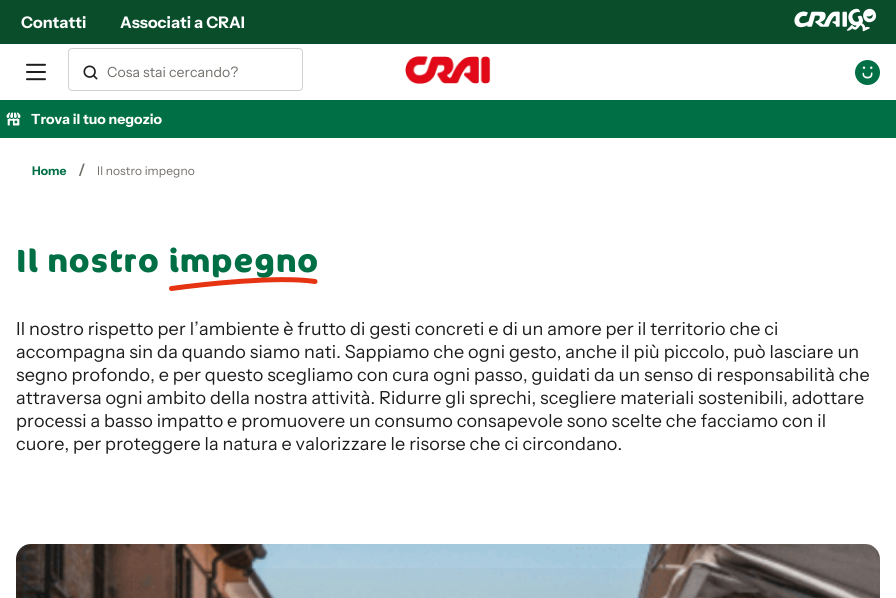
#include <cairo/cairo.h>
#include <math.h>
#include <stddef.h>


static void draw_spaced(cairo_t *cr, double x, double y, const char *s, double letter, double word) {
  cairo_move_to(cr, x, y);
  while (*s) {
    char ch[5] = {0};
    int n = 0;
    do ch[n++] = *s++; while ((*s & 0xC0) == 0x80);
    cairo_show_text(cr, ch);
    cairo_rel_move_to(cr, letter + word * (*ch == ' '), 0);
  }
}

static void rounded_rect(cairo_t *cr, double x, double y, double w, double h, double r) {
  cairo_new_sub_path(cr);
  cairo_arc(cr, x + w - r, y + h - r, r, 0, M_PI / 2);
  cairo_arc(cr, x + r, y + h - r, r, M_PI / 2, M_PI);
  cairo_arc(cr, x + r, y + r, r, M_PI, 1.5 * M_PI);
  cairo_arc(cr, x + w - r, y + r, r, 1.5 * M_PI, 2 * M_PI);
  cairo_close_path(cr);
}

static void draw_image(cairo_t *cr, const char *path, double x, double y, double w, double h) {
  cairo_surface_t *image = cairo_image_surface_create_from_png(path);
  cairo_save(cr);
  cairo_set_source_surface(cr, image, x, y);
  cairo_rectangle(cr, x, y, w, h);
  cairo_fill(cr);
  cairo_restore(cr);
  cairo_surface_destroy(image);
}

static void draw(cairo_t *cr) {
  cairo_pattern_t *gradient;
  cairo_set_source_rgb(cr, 1, 1, 1);
  cairo_paint(cr);
  cairo_set_source_rgb(cr, 9 / 255.0, 77 / 255.0, 43 / 255.0);
  cairo_rectangle(cr, 0, 0, 896, 44);
  cairo_fill(cr);
  draw_image(cr, "images/1.png", 794, 8, 82, 24);
  draw_image(cr, "images/2.png", 26, 63, 20, 18);
  draw_image(cr, "images/3.png", 83, 65, 15, 15);
  rounded_rect(cr, 68.5, 48.5, 234, 42, 3.5);
  cairo_set_source_rgb(cr, 211 / 255.0, 209 / 255.0, 208 / 255.0);
  cairo_set_line_width(cr, 1);
  cairo_stroke(cr);
  draw_image(cr, "images/4.png", 405, 56, 86, 28);
  draw_image(cr, "images/5.png", 855, 60, 25, 25);
  cairo_set_source_rgb(cr, 0, 111 / 255.0, 69 / 255.0);
  cairo_rectangle(cr, 0, 100, 896, 38);
  cairo_fill(cr);
  draw_image(cr, "images/6.png", 6, 112, 15, 14);
  draw_image(cr, "images/7.png", 16, 544, 864, 54);
  gradient = cairo_pattern_create_linear(448, 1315, 448, 544);
  cairo_pattern_add_color_stop_rgba(gradient, 0, 0, 0, 0, 0.7);
  cairo_pattern_add_color_stop_rgba(gradient, 1, 0, 0, 0, 0);
  cairo_set_source(cr, gradient);
  cairo_pattern_destroy(gradient);
  cairo_rectangle(cr, 38, 568, 842, 30);
  cairo_fill(cr);
  cairo_select_font_face(cr, "Instrument Sans", CAIRO_FONT_SLANT_NORMAL, CAIRO_FONT_WEIGHT_BOLD);
  cairo_set_font_size(cr, 16);
  cairo_set_source_rgb(cr, 1, 1, 1);
  cairo_move_to(cr, 21, 28);
  cairo_show_text(cr, "Contatti");
  cairo_move_to(cr, 120, 28);
  cairo_show_text(cr, "Associati a CRAI");
  cairo_select_font_face(cr, "Instrument Sans", CAIRO_FONT_SLANT_NORMAL, CAIRO_FONT_WEIGHT_NORMAL);
  cairo_set_font_size(cr, 14);
  cairo_set_source_rgb(cr, 113 / 255.0, 109 / 255.0, 105 / 255.0);
  draw_spaced(cr, 107, 77, "Cosa stai cercando?", 0.1, 0);
  cairo_select_font_face(cr, "Instrument Sans", CAIRO_FONT_SLANT_NORMAL, CAIRO_FONT_WEIGHT_BOLD);
  cairo_set_source_rgb(cr, 1, 1, 1);
  cairo_move_to(cr, 31, 124);
  cairo_show_text(cr, "Trova il tuo negozio");
  cairo_set_font_size(cr, 12);
  cairo_set_source_rgb(cr, 0, 111 / 255.0, 69 / 255.0);
  draw_spaced(cr, 32, 175, "Home", 0.1, 0);
  cairo_select_font_face(cr, "Roboto", CAIRO_FONT_SLANT_NORMAL, CAIRO_FONT_WEIGHT_BOLD);
  cairo_set_font_size(cr, 16);
  cairo_set_source_rgb(cr, 113 / 255.0, 109 / 255.0, 105 / 255.0);
  draw_spaced(cr, 79, 175, "/", 0.1, 0);
  cairo_select_font_face(cr, "Instrument Sans", CAIRO_FONT_SLANT_NORMAL, CAIRO_FONT_WEIGHT_NORMAL);
  cairo_set_font_size(cr, 12);
  draw_spaced(cr, 97, 175, "Il nostro impegno", 0.1, 0);
  cairo_select_font_face(cr, "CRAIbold", CAIRO_FONT_SLANT_NORMAL, CAIRO_FONT_WEIGHT_BOLD);
  cairo_set_font_size(cr, 32);
  cairo_set_source_rgb(cr, 0, 111 / 255.0, 69 / 255.0);
  draw_spaced(cr, 16, 272, "Il nostro impegno", 1.1, 0);
  cairo_new_path(cr);
  cairo_move_to(cr, 171.5, 288.5);
  cairo_curve_to(cr, 204, 284, 278.5, 276, 315, 281.5);
  cairo_set_source_rgb(cr, 230 / 255.0, 51 / 255.0, 18 / 255.0);
  cairo_set_line_width(cr, 5);
  cairo_set_line_cap(cr, CAIRO_LINE_CAP_ROUND);
  cairo_stroke(cr);
  cairo_select_font_face(cr, "Instrument Sans", CAIRO_FONT_SLANT_NORMAL, CAIRO_FONT_WEIGHT_NORMAL);
  cairo_set_font_size(cr, 18);
  cairo_set_source_rgb(cr, 29 / 255.0, 29 / 255.0, 29 / 255.0);
  draw_spaced(cr, 16, 335, "Il nostro rispetto per l’ambiente è frutto di gesti concreti e di un amore per il territorio che ci", 0.17, 0);
  draw_spaced(cr, 16, 358, "accompagna sin da quando siamo nati. Sappiamo che ogni gesto, anche il più piccolo, può lasciare un", 0.17, 0);
  draw_spaced(cr, 16, 381, "segno profondo, e per questo scegliamo con cura ogni passo, guidati da un senso di responsabilità che", 0.17, 0);
  draw_spaced(cr, 16, 404, "attraversa ogni ambito della nostra attività. Ridurre gli sprechi, scegliere materiali sostenibili, adottare", 0.17, 0);
  draw_spaced(cr, 16, 427, "processi a basso impatto e promuovere un consumo consapevole sono scelte che facciamo con il", 0.17, 0);
  draw_spaced(cr, 16, 450, "cuore, per proteggere la natura e valorizzare le risorse che ci circondano.", 0.17, 0);
}

int main(void) {
  cairo_surface_t *surface = cairo_image_surface_create(CAIRO_FORMAT_RGB24, 896, 598);
  cairo_t *cr = cairo_create(surface);
  cairo_font_options_t *options = cairo_font_options_create();
  cairo_font_options_set_hint_metrics(options, CAIRO_HINT_METRICS_OFF);
  cairo_font_options_set_hint_style(options, CAIRO_HINT_STYLE_NONE);
  cairo_set_font_options(cr, options);
  cairo_set_miter_limit(cr, 4);
  draw(cr);
  cairo_surface_write_to_png(surface, "out.png");
  cairo_font_options_destroy(options);
  cairo_destroy(cr);
  cairo_surface_destroy(surface);
  return 0;
}
